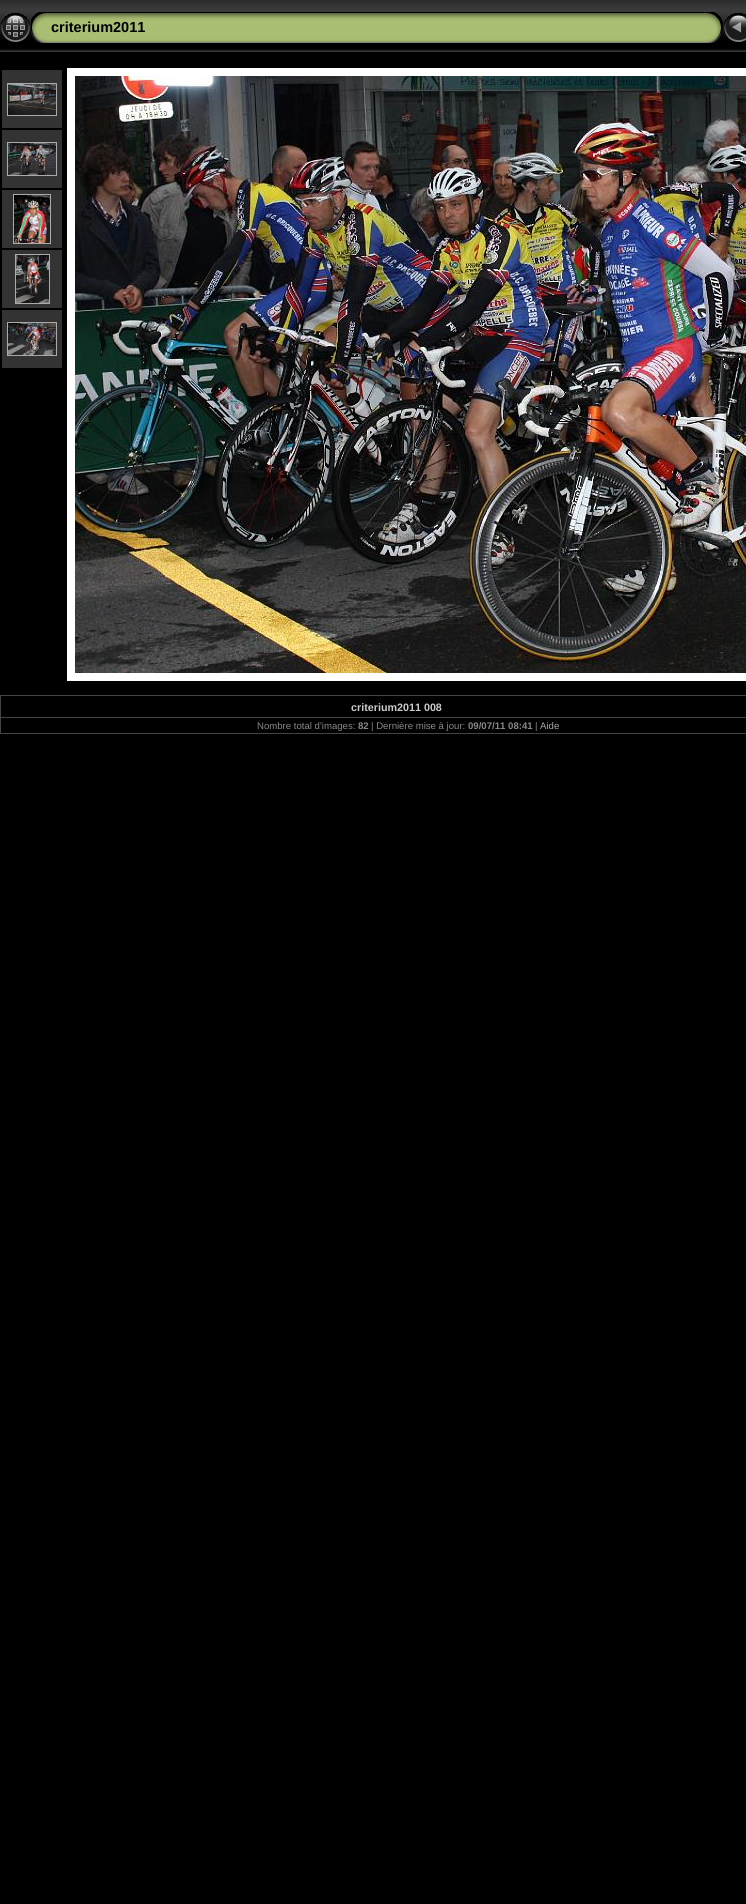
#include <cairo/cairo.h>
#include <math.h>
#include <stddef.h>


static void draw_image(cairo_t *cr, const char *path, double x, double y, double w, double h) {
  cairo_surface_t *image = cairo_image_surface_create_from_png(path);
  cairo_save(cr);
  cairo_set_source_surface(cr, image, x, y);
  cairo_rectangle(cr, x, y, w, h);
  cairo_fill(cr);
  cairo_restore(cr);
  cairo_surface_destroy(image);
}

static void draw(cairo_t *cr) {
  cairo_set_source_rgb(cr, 0, 0, 0);
  cairo_paint(cr);
  draw_image(cr, "images/1.png", 0, 0, 746, 52);
  draw_image(cr, "images/2.png", 1, 13, 29, 29);
  draw_image(cr, "images/3.png", 31, 12, 20, 31);
  draw_image(cr, "images/4.png", 51, 12, 652, 31);
  draw_image(cr, "images/5.png", 703, 12, 20, 31);
  draw_image(cr, "images/6.png", 724, 13, 22, 29);
  cairo_set_source_rgb(cr, 51 / 255.0, 51 / 255.0, 51 / 255.0);
  cairo_rectangle(cr, 2, 70, 60, 58);
  cairo_fill(cr);
  cairo_rectangle(cr, 7.5, 83.5, 49, 32);
  cairo_set_source_rgb(cr, 170 / 255.0, 170 / 255.0, 170 / 255.0);
  cairo_set_line_width(cr, 1);
  cairo_stroke(cr);
  draw_image(cr, "images/7.png", 8, 84, 48, 31);
  cairo_set_source_rgb(cr, 51 / 255.0, 51 / 255.0, 51 / 255.0);
  cairo_rectangle(cr, 2, 130, 60, 58);
  cairo_fill(cr);
  cairo_rectangle(cr, 7.5, 142.5, 49, 33);
  cairo_set_source_rgb(cr, 170 / 255.0, 170 / 255.0, 170 / 255.0);
  cairo_stroke(cr);
  draw_image(cr, "images/8.png", 8, 143, 48, 32);
  cairo_set_source_rgb(cr, 51 / 255.0, 51 / 255.0, 51 / 255.0);
  cairo_rectangle(cr, 2, 190, 60, 58);
  cairo_fill(cr);
  cairo_rectangle(cr, 13.5, 194.5, 37, 49);
  cairo_set_source_rgb(cr, 170 / 255.0, 170 / 255.0, 170 / 255.0);
  cairo_stroke(cr);
  draw_image(cr, "images/9.png", 14, 195, 36, 48);
  cairo_set_source_rgb(cr, 51 / 255.0, 51 / 255.0, 51 / 255.0);
  cairo_rectangle(cr, 2, 250, 60, 58);
  cairo_fill(cr);
  cairo_rectangle(cr, 15.5, 254.5, 34, 49);
  cairo_set_source_rgb(cr, 170 / 255.0, 170 / 255.0, 170 / 255.0);
  cairo_stroke(cr);
  draw_image(cr, "images/10.png", 16, 255, 33, 48);
  cairo_set_source_rgb(cr, 51 / 255.0, 51 / 255.0, 51 / 255.0);
  cairo_rectangle(cr, 2, 310, 60, 58);
  cairo_fill(cr);
  cairo_rectangle(cr, 7.5, 322.5, 49, 33);
  cairo_set_source_rgb(cr, 170 / 255.0, 170 / 255.0, 170 / 255.0);
  cairo_stroke(cr);
  draw_image(cr, "images/11.png", 8, 323, 48, 32);
  cairo_rectangle(cr, 71, 72, 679, 605);
  cairo_set_source_rgb(cr, 1, 1, 1);
  cairo_set_line_width(cr, 8);
  cairo_stroke(cr);
  draw_image(cr, "images/12.png", 75, 76, 671, 597);
  cairo_set_source_rgb(cr, 68 / 255.0, 68 / 255.0, 68 / 255.0);
  cairo_rectangle(cr, 0, 695, 746, 1);
  cairo_fill(cr);
  cairo_rectangle(cr, 0, 733, 746, 1);
  cairo_fill(cr);
  cairo_rectangle(cr, 0, 695, 1, 39);
  cairo_fill(cr);
  cairo_rectangle(cr, 0, 717, 746, 1);
  cairo_fill(cr);
  cairo_select_font_face(cr, "Liberation Sans", CAIRO_FONT_SLANT_NORMAL, CAIRO_FONT_WEIGHT_BOLD);
  cairo_set_font_size(cr, 14.5);
  cairo_set_source_rgb(cr, 0, 0, 0);
  cairo_move_to(cr, 51, 32);
  cairo_show_text(cr, "criterium2011");
  cairo_set_font_size(cr, 10.75);
  cairo_set_source_rgb(cr, 204 / 255.0, 204 / 255.0, 204 / 255.0);
  cairo_move_to(cr, 351, 711);
  cairo_show_text(cr, "criterium2011 008");
  cairo_select_font_face(cr, "Liberation Sans", CAIRO_FONT_SLANT_NORMAL, CAIRO_FONT_WEIGHT_NORMAL);
  cairo_set_font_size(cr, 9.6);
  cairo_set_source_rgb(cr, 136 / 255.0, 136 / 255.0, 136 / 255.0);
  cairo_move_to(cr, 257, 729);
  cairo_show_text(cr, "Nombre total d'images:");
  cairo_select_font_face(cr, "Liberation Sans", CAIRO_FONT_SLANT_NORMAL, CAIRO_FONT_WEIGHT_BOLD);
  cairo_move_to(cr, 358, 729);
  cairo_show_text(cr, "82");
  cairo_select_font_face(cr, "Liberation Sans", CAIRO_FONT_SLANT_NORMAL, CAIRO_FONT_WEIGHT_NORMAL);
  cairo_move_to(cr, 371, 729);
  cairo_show_text(cr, "| Dernière mise à jour:");
  cairo_select_font_face(cr, "Liberation Sans", CAIRO_FONT_SLANT_NORMAL, CAIRO_FONT_WEIGHT_BOLD);
  cairo_move_to(cr, 468, 729);
  cairo_show_text(cr, "09/07/11 08:41");
  cairo_select_font_face(cr, "Liberation Sans", CAIRO_FONT_SLANT_NORMAL, CAIRO_FONT_WEIGHT_NORMAL);
  cairo_move_to(cr, 535, 729);
  cairo_show_text(cr, "|");
  cairo_set_source_rgb(cr, 170 / 255.0, 170 / 255.0, 170 / 255.0);
  cairo_move_to(cr, 540, 729);
  cairo_show_text(cr, "Aide");
}

int main(void) {
  cairo_surface_t *surface = cairo_image_surface_create(CAIRO_FORMAT_RGB24, 746, 1904);
  cairo_t *cr = cairo_create(surface);
  cairo_font_options_t *options = cairo_font_options_create();
  cairo_font_options_set_hint_metrics(options, CAIRO_HINT_METRICS_OFF);
  cairo_font_options_set_hint_style(options, CAIRO_HINT_STYLE_NONE);
  cairo_set_font_options(cr, options);
  cairo_set_miter_limit(cr, 4);
  draw(cr);
  cairo_surface_write_to_png(surface, "out.png");
  cairo_font_options_destroy(options);
  cairo_destroy(cr);
  cairo_surface_destroy(surface);
  return 0;
}
